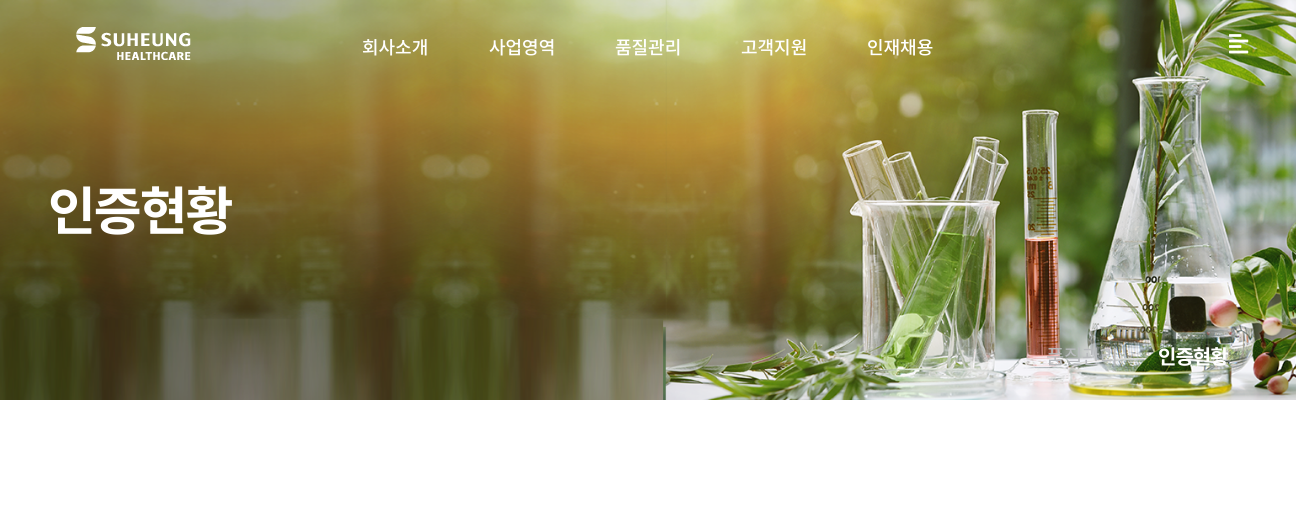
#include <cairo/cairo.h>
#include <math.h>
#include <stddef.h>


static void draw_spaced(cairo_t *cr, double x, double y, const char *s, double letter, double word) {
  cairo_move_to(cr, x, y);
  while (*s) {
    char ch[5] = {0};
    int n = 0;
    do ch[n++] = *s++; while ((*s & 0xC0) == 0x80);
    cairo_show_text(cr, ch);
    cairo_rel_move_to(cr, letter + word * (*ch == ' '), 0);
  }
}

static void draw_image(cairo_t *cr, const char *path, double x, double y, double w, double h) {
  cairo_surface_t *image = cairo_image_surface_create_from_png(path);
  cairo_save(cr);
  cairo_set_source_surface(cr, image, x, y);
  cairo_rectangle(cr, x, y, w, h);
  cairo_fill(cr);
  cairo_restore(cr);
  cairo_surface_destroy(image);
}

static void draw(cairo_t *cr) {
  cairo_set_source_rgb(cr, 1, 1, 1);
  cairo_paint(cr);
  draw_image(cr, "images/3.png", 0, 0, 1296, 400);
  draw_image(cr, "images/1.png", 76, 27, 115, 33);
  draw_image(cr, "images/2.png", 1229, 34, 20, 20);
  cairo_select_font_face(cr, "Noto Sans KR Medium", CAIRO_FONT_SLANT_NORMAL, CAIRO_FONT_WEIGHT_NORMAL);
  cairo_set_font_size(cr, 18);
  cairo_set_source_rgb(cr, 1, 1, 1);
  cairo_move_to(cr, 362, 54);
  cairo_show_text(cr, "회사소개");
  cairo_move_to(cr, 489, 54);
  cairo_show_text(cr, "사업영역");
  cairo_move_to(cr, 615, 54);
  cairo_show_text(cr, "품질관리");
  cairo_move_to(cr, 741, 54);
  cairo_show_text(cr, "고객지원");
  cairo_move_to(cr, 867, 54);
  cairo_show_text(cr, "인재채용");
  cairo_select_font_face(cr, "Noto Sans KR", CAIRO_FONT_SLANT_NORMAL, CAIRO_FONT_WEIGHT_BOLD);
  cairo_set_font_size(cr, 52);
  draw_spaced(cr, 48, 230, "인증현황", -2, 0);
  cairo_select_font_face(cr, "Noto Sans KR", CAIRO_FONT_SLANT_NORMAL, CAIRO_FONT_WEIGHT_NORMAL);
  cairo_set_font_size(cr, 20);
  cairo_set_source_rgb(cr, 184 / 255.0, 186 / 255.0, 189 / 255.0);
  draw_spaced(cr, 1046, 364, "품질관리", -0.5, 0);
  cairo_select_font_face(cr, "Noto Sans KR", CAIRO_FONT_SLANT_NORMAL, CAIRO_FONT_WEIGHT_BOLD);
  cairo_set_source_rgb(cr, 1, 1, 1);
  draw_spaced(cr, 1158, 364, "인증현황", -1, 0);
}

int main(void) {
  cairo_surface_t *surface = cairo_image_surface_create(CAIRO_FORMAT_RGB24, 1296, 527);
  cairo_t *cr = cairo_create(surface);
  cairo_font_options_t *options = cairo_font_options_create();
  cairo_font_options_set_hint_metrics(options, CAIRO_HINT_METRICS_OFF);
  cairo_font_options_set_hint_style(options, CAIRO_HINT_STYLE_NONE);
  cairo_set_font_options(cr, options);
  cairo_set_miter_limit(cr, 4);
  draw(cr);
  cairo_surface_write_to_png(surface, "out.png");
  cairo_font_options_destroy(options);
  cairo_destroy(cr);
  cairo_surface_destroy(surface);
  return 0;
}
